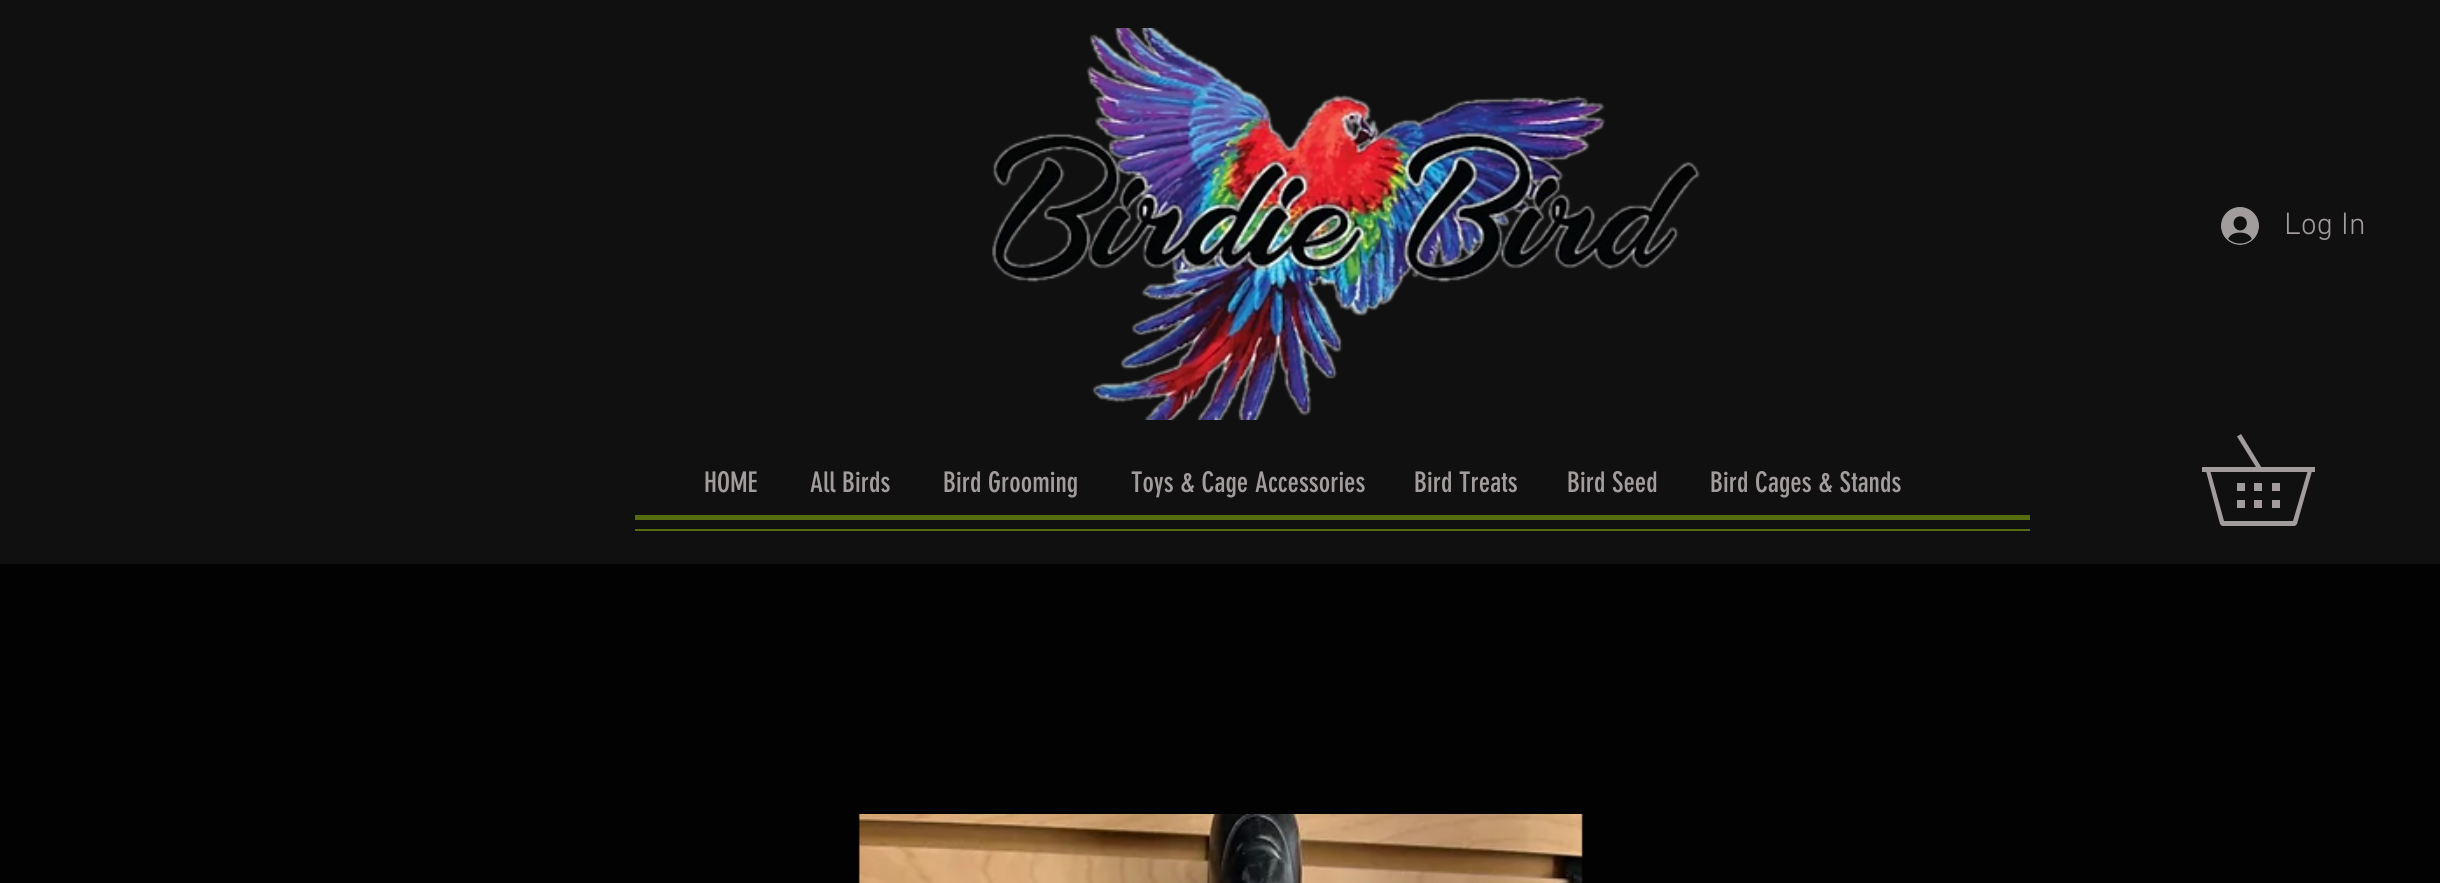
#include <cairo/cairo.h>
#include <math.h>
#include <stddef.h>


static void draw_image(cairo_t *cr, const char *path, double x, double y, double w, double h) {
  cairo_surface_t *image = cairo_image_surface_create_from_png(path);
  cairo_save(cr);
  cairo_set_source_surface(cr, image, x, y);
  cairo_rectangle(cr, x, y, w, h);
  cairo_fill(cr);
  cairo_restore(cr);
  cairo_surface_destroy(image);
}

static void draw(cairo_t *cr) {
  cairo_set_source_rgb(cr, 2 / 255.0, 2 / 255.0, 2 / 255.0);
  cairo_paint(cr);
  cairo_set_source_rgb(cr, 16 / 255.0, 16 / 255.0, 16 / 255.0);
  cairo_rectangle(cr, 0, 0, 2440, 564);
  cairo_fill(cr);
  draw_image(cr, "images/1.png", 992, 28, 708, 392);
  draw_image(cr, "images/2.png", 2221, 207, 38, 38);
  cairo_set_source_rgb(cr, 162 / 255.0, 156 / 255.0, 156 / 255.0);
  cairo_rectangle(cr, 2202, 467, 113, 5);
  cairo_fill(cr);
  cairo_new_path(cr);
  cairo_move_to(cr, 2295, 526);
  cairo_line_to(cr, 2222, 526);
  cairo_curve_to(cr, 2222, 526, 2221, 525, 2220, 524);
  cairo_line_to(cr, 2206, 471);
  cairo_line_to(cr, 2210, 470);
  cairo_line_to(cr, 2224, 521);
  cairo_line_to(cr, 2293, 521);
  cairo_line_to(cr, 2308, 470);
  cairo_line_to(cr, 2312, 471);
  cairo_line_to(cr, 2297, 524);
  cairo_close_path(cr);
  cairo_fill(cr);
  cairo_new_path(cr);
  cairo_move_to(cr, 2257.5, 469.5);
  cairo_line_to(cr, 2237, 436.5);
  cairo_line_to(cr, 2241, 434);
  cairo_line_to(cr, 2261.5, 467.5);
  cairo_close_path(cr);
  cairo_fill(cr);
  cairo_rectangle(cr, 2254, 483, 8, 8);
  cairo_fill(cr);
  cairo_rectangle(cr, 2272, 483, 8, 8);
  cairo_fill(cr);
  cairo_rectangle(cr, 2237, 483, 8, 8);
  cairo_fill(cr);
  cairo_rectangle(cr, 2254, 500, 8, 8);
  cairo_fill(cr);
  cairo_rectangle(cr, 2272, 500, 8, 8);
  cairo_fill(cr);
  cairo_rectangle(cr, 2237, 500, 8, 8);
  cairo_fill(cr);
  cairo_set_source_rgb(cr, 85 / 255.0, 109 / 255.0, 14 / 255.0);
  cairo_rectangle(cr, 635, 515, 1395, 5);
  cairo_fill(cr);
  cairo_rectangle(cr, 635, 529, 1395, 2);
  cairo_fill(cr);
  draw_image(cr, "images/3.png", 858, 814, 725, 69);
  cairo_select_font_face(cr, "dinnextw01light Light", CAIRO_FONT_SLANT_NORMAL, CAIRO_FONT_WEIGHT_NORMAL);
  cairo_set_font_size(cr, 31.5);
  cairo_set_source_rgb(cr, 162 / 255.0, 156 / 255.0, 156 / 255.0);
  cairo_move_to(cr, 2284, 234);
  cairo_show_text(cr, "Log In");
  cairo_select_font_face(cr, "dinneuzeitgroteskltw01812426", CAIRO_FONT_SLANT_NORMAL, CAIRO_FONT_WEIGHT_NORMAL);
  cairo_set_font_size(cr, 28);
  cairo_move_to(cr, 704, 492);
  cairo_show_text(cr, "HOME");
  cairo_move_to(cr, 810, 492);
  cairo_show_text(cr, "All Birds");
  cairo_move_to(cr, 943, 492);
  cairo_show_text(cr, "Bird Grooming");
  cairo_move_to(cr, 1131, 492);
  cairo_show_text(cr, "Toys & Cage Accessories");
  cairo_move_to(cr, 1414, 492);
  cairo_show_text(cr, "Bird Treats");
  cairo_move_to(cr, 1567, 492);
  cairo_show_text(cr, "Bird Seed");
  cairo_move_to(cr, 1710, 492);
  cairo_show_text(cr, "Bird Cages & Stands");
}

int main(void) {
  cairo_surface_t *surface = cairo_image_surface_create(CAIRO_FORMAT_RGB24, 2440, 883);
  cairo_t *cr = cairo_create(surface);
  cairo_font_options_t *options = cairo_font_options_create();
  cairo_font_options_set_hint_metrics(options, CAIRO_HINT_METRICS_OFF);
  cairo_font_options_set_hint_style(options, CAIRO_HINT_STYLE_NONE);
  cairo_set_font_options(cr, options);
  cairo_set_miter_limit(cr, 4);
  draw(cr);
  cairo_surface_write_to_png(surface, "out.png");
  cairo_font_options_destroy(options);
  cairo_destroy(cr);
  cairo_surface_destroy(surface);
  return 0;
}
